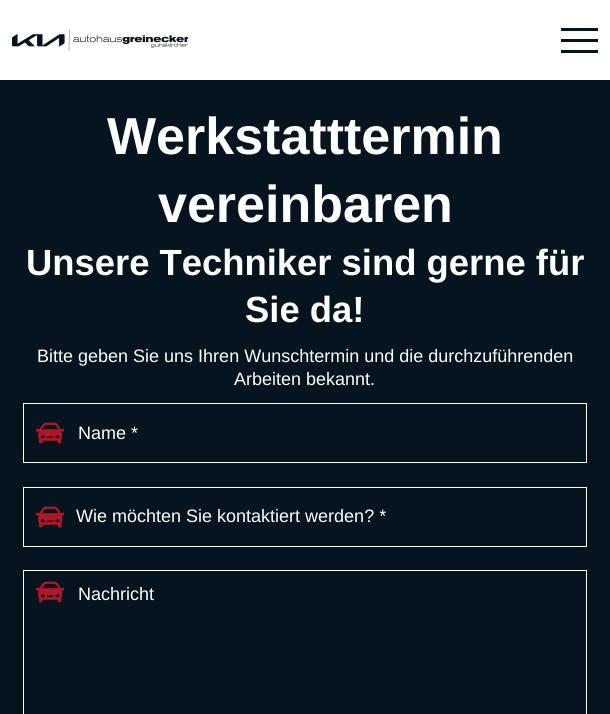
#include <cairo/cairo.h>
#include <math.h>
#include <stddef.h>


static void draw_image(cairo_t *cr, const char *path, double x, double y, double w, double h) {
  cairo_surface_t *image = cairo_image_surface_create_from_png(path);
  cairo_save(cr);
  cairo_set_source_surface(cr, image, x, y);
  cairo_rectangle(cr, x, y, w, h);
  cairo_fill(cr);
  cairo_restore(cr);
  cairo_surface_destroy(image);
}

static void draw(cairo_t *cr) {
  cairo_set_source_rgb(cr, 1, 1, 1);
  cairo_paint(cr);
  draw_image(cr, "images/1.png", 12, 29, 176, 22);
  cairo_set_source_rgb(cr, 5 / 255.0, 20 / 255.0, 31 / 255.0);
  cairo_rectangle(cr, 561, 28, 37, 3);
  cairo_fill(cr);
  cairo_rectangle(cr, 561, 39, 37, 3);
  cairo_fill(cr);
  cairo_rectangle(cr, 561, 50, 37, 3);
  cairo_fill(cr);
  cairo_rectangle(cr, 0, 80, 610, 634);
  cairo_fill(cr);
  cairo_rectangle(cr, 23.5, 403.5, 563, 59);
  cairo_set_source_rgb(cr, 1, 1, 1);
  cairo_set_line_width(cr, 1);
  cairo_stroke(cr);
  draw_image(cr, "images/2.png", 36, 422, 28, 22);
  cairo_rectangle(cr, 23.5, 487.5, 563, 59);
  cairo_stroke(cr);
  draw_image(cr, "images/3.png", 36, 506, 28, 22);
  cairo_rectangle(cr, 23.5, 570.5, 563, 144);
  cairo_stroke(cr);
  draw_image(cr, "images/2.png", 36, 581, 28, 22);
  cairo_select_font_face(cr, "Liberation Sans", CAIRO_FONT_SLANT_NORMAL, CAIRO_FONT_WEIGHT_BOLD);
  cairo_set_font_size(cr, 52);
  cairo_move_to(cr, 107, 154);
  cairo_show_text(cr, "Werkstatttermin");
  cairo_move_to(cr, 158, 222);
  cairo_show_text(cr, "vereinbaren");
  cairo_set_font_size(cr, 36.4);
  cairo_move_to(cr, 26, 275);
  cairo_show_text(cr, "Unsere Techniker sind gerne für");
  cairo_move_to(cr, 245, 322);
  cairo_show_text(cr, "Sie da!");
  cairo_select_font_face(cr, "Liberation Sans", CAIRO_FONT_SLANT_NORMAL, CAIRO_FONT_WEIGHT_NORMAL);
  cairo_set_font_size(cr, 18);
  cairo_move_to(cr, 37, 362);
  cairo_show_text(cr, "Bitte geben Sie uns Ihren Wunschtermin und die durchzuführenden");
  cairo_move_to(cr, 234, 385);
  cairo_show_text(cr, "Arbeiten bekannt.");
  cairo_move_to(cr, 78, 439);
  cairo_show_text(cr, "Name *");
  cairo_move_to(cr, 76, 522);
  cairo_show_text(cr, "Wie möchten Sie kontaktiert werden? *");
  cairo_move_to(cr, 78, 600);
  cairo_show_text(cr, "Nachricht");
}

int main(void) {
  cairo_surface_t *surface = cairo_image_surface_create(CAIRO_FORMAT_RGB24, 610, 714);
  cairo_t *cr = cairo_create(surface);
  cairo_font_options_t *options = cairo_font_options_create();
  cairo_font_options_set_hint_metrics(options, CAIRO_HINT_METRICS_OFF);
  cairo_font_options_set_hint_style(options, CAIRO_HINT_STYLE_NONE);
  cairo_set_font_options(cr, options);
  cairo_set_miter_limit(cr, 4);
  draw(cr);
  cairo_surface_write_to_png(surface, "out.png");
  cairo_font_options_destroy(options);
  cairo_destroy(cr);
  cairo_surface_destroy(surface);
  return 0;
}
